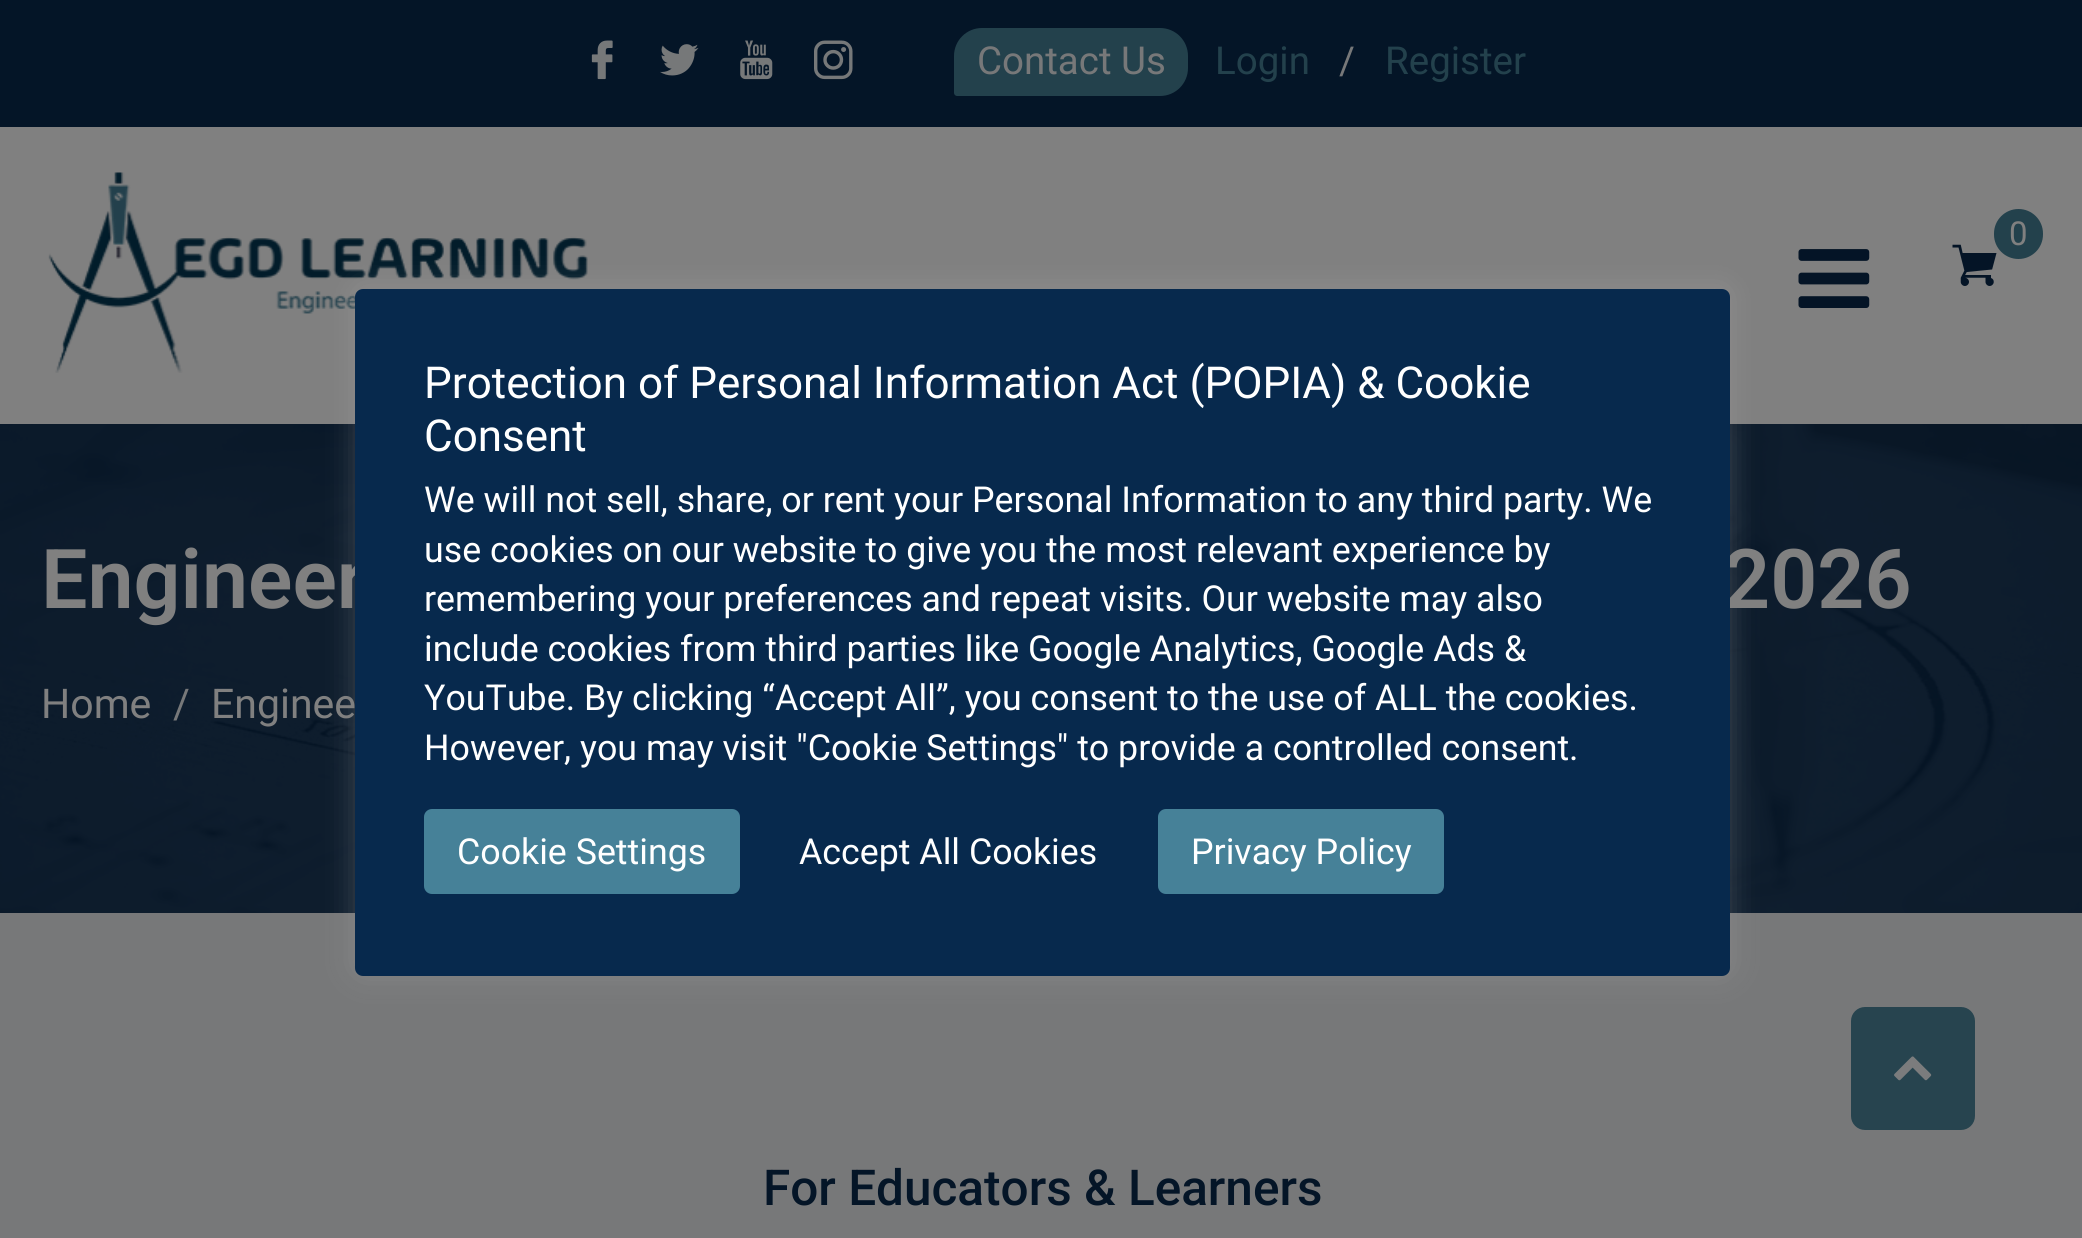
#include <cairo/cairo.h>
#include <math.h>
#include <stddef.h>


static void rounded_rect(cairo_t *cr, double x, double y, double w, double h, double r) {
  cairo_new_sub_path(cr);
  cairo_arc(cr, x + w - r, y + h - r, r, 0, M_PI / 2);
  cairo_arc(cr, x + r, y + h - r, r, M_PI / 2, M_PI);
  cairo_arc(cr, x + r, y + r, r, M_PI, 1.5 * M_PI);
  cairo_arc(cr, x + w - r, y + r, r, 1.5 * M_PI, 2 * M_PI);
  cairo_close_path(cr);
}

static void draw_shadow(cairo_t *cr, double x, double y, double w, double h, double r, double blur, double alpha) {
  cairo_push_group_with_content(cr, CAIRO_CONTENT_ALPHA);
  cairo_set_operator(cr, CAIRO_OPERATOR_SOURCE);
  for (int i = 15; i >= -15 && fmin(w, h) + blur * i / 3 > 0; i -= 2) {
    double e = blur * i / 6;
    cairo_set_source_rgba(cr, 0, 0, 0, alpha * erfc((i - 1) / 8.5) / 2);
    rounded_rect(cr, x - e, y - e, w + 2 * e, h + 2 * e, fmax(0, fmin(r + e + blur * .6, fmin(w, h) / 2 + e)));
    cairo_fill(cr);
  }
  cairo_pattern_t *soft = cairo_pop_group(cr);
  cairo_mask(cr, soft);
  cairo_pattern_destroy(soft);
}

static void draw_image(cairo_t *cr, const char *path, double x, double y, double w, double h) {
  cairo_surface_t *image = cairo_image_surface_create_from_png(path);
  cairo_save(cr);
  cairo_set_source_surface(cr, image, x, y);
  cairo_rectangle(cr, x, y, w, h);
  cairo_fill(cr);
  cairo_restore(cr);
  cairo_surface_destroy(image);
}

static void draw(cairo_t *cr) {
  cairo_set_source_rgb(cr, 119 / 255.0, 120 / 255.0, 121 / 255.0);
  cairo_paint(cr);
  cairo_set_source_rgb(cr, 128 / 255.0, 128 / 255.0, 128 / 255.0);
  cairo_rectangle(cr, 0, 127, 2082, 297);
  cairo_fill(cr);
  cairo_set_source_rgb(cr, 4 / 255.0, 21 / 255.0, 39 / 255.0);
  cairo_rectangle(cr, 0, 0, 2082, 127);
  cairo_fill(cr);
  draw_image(cr, "images/1.png", 591, 40, 22, 40);
  draw_image(cr, "images/2.png", 660, 44, 39, 32);
  draw_image(cr, "images/3.png", 740, 40, 33, 40);
  draw_image(cr, "images/4.png", 814, 40, 39, 40);
  cairo_set_source_rgb(cr, 35 / 255.0, 65 / 255.0, 76 / 255.0);
  cairo_new_path(cr);
  cairo_move_to(cr, 982, 28);
  cairo_line_to(cr, 1160, 28);
  cairo_curve_to(cr, 1175.5, 28, 1188, 40.5, 1188, 56);
  cairo_line_to(cr, 1188, 68);
  cairo_curve_to(cr, 1188, 83.5, 1175.5, 96, 1160, 96);
  cairo_line_to(cr, 957, 96);
  cairo_curve_to(cr, 955.5, 96, 954, 94.5, 954, 93);
  cairo_line_to(cr, 954, 56);
  cairo_curve_to(cr, 954, 40.5, 966.5, 28, 982, 28);
  cairo_close_path(cr);
  cairo_fill(cr);
  draw_image(cr, "images/5.png", 48, 172, 540, 201);
  draw_image(cr, "images/6.png", 1952, 244, 45, 42);
  rounded_rect(cr, 1994, 209, 49, 50, 24.5);
  cairo_fill(cr);
  draw_image(cr, "images/7.png", 1798, 249, 72, 59);
  draw_image(cr, "images/8.png", 0, 424, 2082, 489);
  cairo_set_source_rgb(cr, 172 / 255.0, 171 / 255.0, 171 / 255.0);
  draw_shadow(cr, 355, 286, 1375, 688, 8, 14, 0.3);
  cairo_set_source_rgb(cr, 39 / 255.0, 68 / 255.0, 79 / 255.0);
  rounded_rect(cr, 1851, 1007, 124, 123, 14);
  cairo_fill(cr);
  draw_image(cr, "images/9.png", 1894, 1056, 38, 25);
  cairo_select_font_face(cr, "Roboto", CAIRO_FONT_SLANT_NORMAL, CAIRO_FONT_WEIGHT_NORMAL);
  cairo_set_font_size(cr, 38.5);
  cairo_set_source_rgb(cr, 119 / 255.0, 120 / 255.0, 121 / 255.0);
  cairo_move_to(cr, 977, 74);
  cairo_show_text(cr, "Contact Us");
  cairo_set_source_rgb(cr, 35 / 255.0, 65 / 255.0, 76 / 255.0);
  cairo_move_to(cr, 1215, 74);
  cairo_show_text(cr, "Login");
  cairo_set_source_rgb(cr, 119 / 255.0, 120 / 255.0, 121 / 255.0);
  cairo_move_to(cr, 1339, 74);
  cairo_show_text(cr, "/");
  cairo_set_source_rgb(cr, 35 / 255.0, 65 / 255.0, 76 / 255.0);
  cairo_move_to(cr, 1385, 74);
  cairo_show_text(cr, "Register");
  cairo_set_font_size(cr, 33);
  cairo_set_source_rgb(cr, 128 / 255.0, 128 / 255.0, 128 / 255.0);
  cairo_move_to(cr, 2009, 245);
  cairo_show_text(cr, "0");
  cairo_select_font_face(cr, "Roboto SemiBold", CAIRO_FONT_SLANT_NORMAL, CAIRO_FONT_WEIGHT_NORMAL);
  cairo_set_font_size(cr, 82.5);
  cairo_move_to(cr, 41, 608);
  cairo_show_text(cr, "Engineer");
  cairo_move_to(cr, 1723, 608);
  cairo_show_text(cr, "2026");
  cairo_select_font_face(cr, "Roboto", CAIRO_FONT_SLANT_NORMAL, CAIRO_FONT_WEIGHT_NORMAL);
  cairo_set_font_size(cr, 41);
  cairo_move_to(cr, 41, 718);
  cairo_show_text(cr, "Home");
  cairo_set_source_rgb(cr, 119 / 255.0, 120 / 255.0, 121 / 255.0);
  cairo_move_to(cr, 173, 718);
  cairo_show_text(cr, "/");
  cairo_set_source_rgb(cr, 128 / 255.0, 128 / 255.0, 128 / 255.0);
  cairo_move_to(cr, 211, 718);
  cairo_show_text(cr, "Enginee");
  cairo_select_font_face(cr, "Roboto Medium", CAIRO_FONT_SLANT_NORMAL, CAIRO_FONT_WEIGHT_NORMAL);
  cairo_set_font_size(cr, 49.5);
  cairo_set_source_rgb(cr, 4 / 255.0, 21 / 255.0, 39 / 255.0);
  cairo_move_to(cr, 763, 1205);
  cairo_show_text(cr, "For Educators & Learners");
  cairo_set_source_rgb(cr, 7 / 255.0, 41 / 255.0, 77 / 255.0);
  rounded_rect(cr, 355, 289, 1375, 687, 8);
  cairo_fill(cr);
  cairo_select_font_face(cr, "Roboto", CAIRO_FONT_SLANT_NORMAL, CAIRO_FONT_WEIGHT_NORMAL);
  cairo_set_font_size(cr, 44);
  cairo_set_source_rgb(cr, 1, 1, 1);
  cairo_move_to(cr, 424, 398);
  cairo_show_text(cr, "Protection of Personal Information Act (POPIA) & Cookie");
  cairo_move_to(cr, 424, 451);
  cairo_show_text(cr, "Consent");
  cairo_set_font_size(cr, 35.75);
  cairo_move_to(cr, 424, 512);
  cairo_show_text(cr, "We will not sell, share, or rent your Personal Information to any third party. We");
  cairo_move_to(cr, 424, 562);
  cairo_show_text(cr, "use cookies on our website to give you the most relevant experience by");
  cairo_move_to(cr, 424, 611);
  cairo_show_text(cr, "remembering your preferences and repeat visits. Our website may also");
  cairo_move_to(cr, 424, 661);
  cairo_show_text(cr, "include cookies from third parties like Google Analytics, Google Ads &");
  cairo_move_to(cr, 424, 710);
  cairo_show_text(cr, "YouTube. By clicking “Accept All”, you consent to the use of ALL the cookies.");
  cairo_move_to(cr, 424, 760);
  cairo_show_text(cr, "However, you may visit \"Cookie Settings\" to provide a controlled consent.");
  cairo_set_source_rgb(cr, 70 / 255.0, 129 / 255.0, 152 / 255.0);
  rounded_rect(cr, 424, 809, 316, 85, 8);
  cairo_fill(cr);
  cairo_set_source_rgb(cr, 1, 1, 1);
  cairo_move_to(cr, 457, 864);
  cairo_show_text(cr, "Cookie Settings");
  cairo_move_to(cr, 799, 864);
  cairo_show_text(cr, "Accept All Cookies");
  cairo_set_source_rgb(cr, 70 / 255.0, 129 / 255.0, 152 / 255.0);
  rounded_rect(cr, 1158, 809, 286, 85, 8);
  cairo_fill(cr);
  cairo_set_source_rgb(cr, 1, 1, 1);
  cairo_move_to(cr, 1191, 864);
  cairo_show_text(cr, "Privacy Policy");
}

int main(void) {
  cairo_surface_t *surface = cairo_image_surface_create(CAIRO_FORMAT_RGB24, 2082, 1238);
  cairo_t *cr = cairo_create(surface);
  cairo_font_options_t *options = cairo_font_options_create();
  cairo_font_options_set_hint_metrics(options, CAIRO_HINT_METRICS_OFF);
  cairo_font_options_set_hint_style(options, CAIRO_HINT_STYLE_NONE);
  cairo_set_font_options(cr, options);
  cairo_set_miter_limit(cr, 4);
  draw(cr);
  cairo_surface_write_to_png(surface, "out.png");
  cairo_font_options_destroy(options);
  cairo_destroy(cr);
  cairo_surface_destroy(surface);
  return 0;
}
